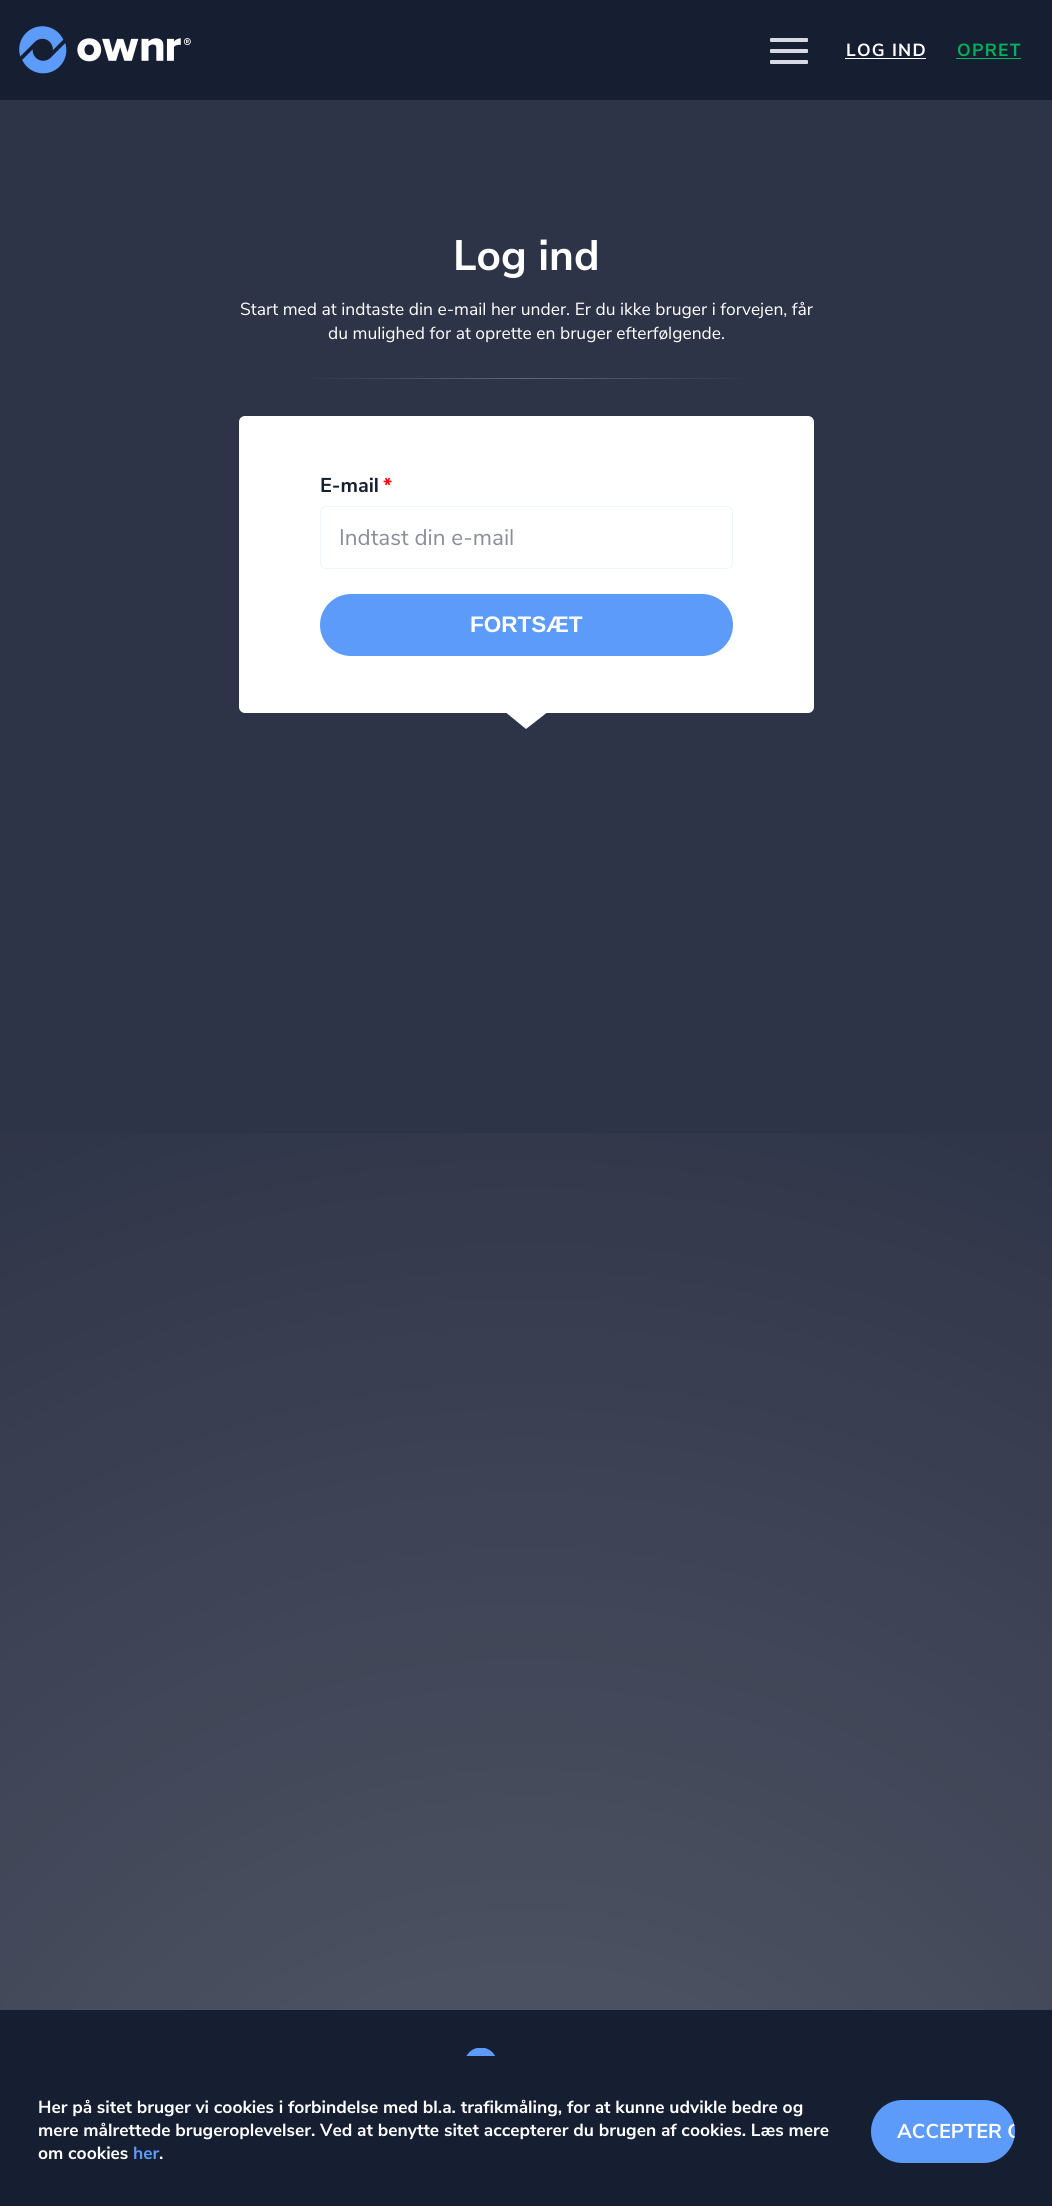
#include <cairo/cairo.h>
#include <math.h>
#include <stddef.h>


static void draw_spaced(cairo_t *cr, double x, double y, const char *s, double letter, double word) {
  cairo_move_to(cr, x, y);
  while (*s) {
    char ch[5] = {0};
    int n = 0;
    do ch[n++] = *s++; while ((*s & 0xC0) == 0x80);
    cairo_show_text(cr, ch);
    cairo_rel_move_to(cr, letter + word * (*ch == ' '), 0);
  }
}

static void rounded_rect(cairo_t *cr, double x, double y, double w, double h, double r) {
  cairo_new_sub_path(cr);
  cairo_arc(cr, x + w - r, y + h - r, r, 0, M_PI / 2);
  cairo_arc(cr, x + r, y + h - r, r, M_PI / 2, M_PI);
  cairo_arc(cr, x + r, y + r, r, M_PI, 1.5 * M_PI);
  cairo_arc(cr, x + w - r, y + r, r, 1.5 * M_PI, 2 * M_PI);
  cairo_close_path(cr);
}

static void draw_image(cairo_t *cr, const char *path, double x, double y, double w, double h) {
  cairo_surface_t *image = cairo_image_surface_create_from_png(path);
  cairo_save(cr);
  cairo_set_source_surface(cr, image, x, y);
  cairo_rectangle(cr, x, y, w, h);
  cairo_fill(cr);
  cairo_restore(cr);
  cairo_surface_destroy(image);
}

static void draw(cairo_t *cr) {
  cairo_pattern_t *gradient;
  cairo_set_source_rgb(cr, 22 / 255.0, 30 / 255.0, 49 / 255.0);
  cairo_paint(cr);
  draw_image(cr, "images/1.png", 19, 26, 172, 48);
  cairo_set_source_rgb(cr, 215 / 255.0, 218 / 255.0, 228 / 255.0);
  rounded_rect(cr, 770, 49, 38, 4, 1);
  cairo_fill(cr);
  rounded_rect(cr, 770, 38, 38, 4, 1);
  cairo_fill(cr);
  rounded_rect(cr, 770, 60, 38, 4, 1);
  cairo_fill(cr);
  cairo_set_source_rgb(cr, 1, 1, 1);
  cairo_rectangle(cr, 845, 58, 81, 1);
  cairo_fill(cr);
  cairo_set_source_rgb(cr, 0, 178 / 255.0, 89 / 255.0);
  cairo_rectangle(cr, 956, 58, 65, 1);
  cairo_fill(cr);
  cairo_set_source_rgb(cr, 46 / 255.0, 52 / 255.0, 71 / 255.0);
  cairo_rectangle(cr, 0, 100, 1052, 1910);
  cairo_fill(cr);
  gradient = cairo_pattern_create_linear(296, 378, 756, 378);
  cairo_pattern_add_color_stop_rgba(gradient, 0, 46 / 255.0, 52 / 255.0, 71 / 255.0, 1);
  cairo_pattern_add_color_stop_rgba(gradient, 0.5, 98 / 255.0, 103 / 255.0, 117 / 255.0, 1);
  cairo_pattern_add_color_stop_rgba(gradient, 1, 46 / 255.0, 52 / 255.0, 71 / 255.0, 1);
  cairo_set_source(cr, gradient);
  cairo_pattern_destroy(gradient);
  cairo_rectangle(cr, 307, 378, 438, 1);
  cairo_fill(cr);
  cairo_set_source_rgb(cr, 1, 1, 1);
  rounded_rect(cr, 239, 416, 575, 297, 6);
  cairo_fill(cr);
  rounded_rect(cr, 320.5, 506.5, 412, 62, 5.5);
  cairo_set_source_rgb(cr, 238 / 255.0, 245 / 255.0, 1);
  cairo_set_line_width(cr, 1);
  cairo_stroke(cr);
  cairo_set_source_rgb(cr, 93 / 255.0, 155 / 255.0, 250 / 255.0);
  rounded_rect(cr, 320, 594, 413, 62, 31);
  cairo_fill(cr);
  cairo_set_source_rgb(cr, 1, 1, 1);
  cairo_new_path(cr);
  cairo_move_to(cr, 504, 711);
  cairo_line_to(cr, 549, 711);
  cairo_line_to(cr, 526, 729);
  cairo_close_path(cr);
  cairo_fill(cr);
  gradient = cairo_pattern_create_radial(526, 2392, 0, 526, 2392, 2352);
  cairo_pattern_add_color_stop_rgba(gradient, 0, 1, 1, 1, 0.2);
  cairo_pattern_add_color_stop_rgba(gradient, 0.6, 1, 1, 1, 0);
  cairo_set_source(cr, gradient);
  cairo_pattern_destroy(gradient);
  cairo_rectangle(cr, 0, 1133, 1052, 877);
  cairo_fill(cr);
  draw_image(cr, "images/2.png", 466, 2048, 118, 8);
  cairo_set_source_rgb(cr, 93 / 255.0, 155 / 255.0, 250 / 255.0);
  rounded_rect(cr, 871, 2100, 144, 63, 31.5);
  cairo_fill(cr);
  cairo_select_font_face(cr, "Nunito Sans", CAIRO_FONT_SLANT_NORMAL, CAIRO_FONT_WEIGHT_BOLD);
  cairo_set_font_size(cr, 17.5);
  cairo_set_source_rgb(cr, 1, 1, 1);
  draw_spaced(cr, 846, 56, "LOG IND", 1.25, 0);
  cairo_set_source_rgb(cr, 0, 178 / 255.0, 89 / 255.0);
  draw_spaced(cr, 957, 56, "OPRET", 1.25, 0);
  cairo_set_font_size(cr, 42.5);
  cairo_set_source_rgb(cr, 1, 1, 1);
  cairo_move_to(cr, 453, 270);
  cairo_show_text(cr, "Log ind");
  cairo_select_font_face(cr, "Nunito Sans", CAIRO_FONT_SLANT_NORMAL, CAIRO_FONT_WEIGHT_NORMAL);
  cairo_set_font_size(cr, 17.5);
  cairo_move_to(cr, 240, 315);
  cairo_show_text(cr, "Start med at indtaste din e-mail her under. Er du ikke bruger i forvejen, får");
  cairo_move_to(cr, 328, 339);
  cairo_show_text(cr, "du mulighed for at oprette en bruger efterfølgende.");
  cairo_select_font_face(cr, "Nunito Sans", CAIRO_FONT_SLANT_NORMAL, CAIRO_FONT_WEIGHT_BOLD);
  cairo_set_font_size(cr, 20);
  cairo_set_source_rgb(cr, 22 / 255.0, 30 / 255.0, 49 / 255.0);
  cairo_move_to(cr, 320, 492);
  cairo_show_text(cr, "E-mail");
  cairo_set_source_rgb(cr, 1, 0, 0);
  cairo_move_to(cr, 383, 492);
  cairo_show_text(cr, "*");
  cairo_select_font_face(cr, "Nunito Sans", CAIRO_FONT_SLANT_NORMAL, CAIRO_FONT_WEIGHT_NORMAL);
  cairo_set_font_size(cr, 22.5);
  cairo_set_source_rgb(cr, 139 / 255.0, 142 / 255.0, 153 / 255.0);
  cairo_move_to(cr, 339, 545);
  cairo_show_text(cr, "Indtast din e-mail");
  cairo_select_font_face(cr, "Liberation Sans", CAIRO_FONT_SLANT_NORMAL, CAIRO_FONT_WEIGHT_BOLD);
  cairo_set_source_rgb(cr, 1, 1, 1);
  cairo_move_to(cr, 470, 632);
  cairo_show_text(cr, "FORTSÆT");
  cairo_select_font_face(cr, "Nunito Sans", CAIRO_FONT_SLANT_NORMAL, CAIRO_FONT_WEIGHT_BOLD);
  cairo_set_font_size(cr, 17.5);
  cairo_move_to(cr, 38, 2113);
  cairo_show_text(cr, "Her på sitet bruger vi cookies i forbindelse med bl.a. trafikmåling, for at kunne udvikle bedre og");
  cairo_move_to(cr, 38, 2136);
  cairo_show_text(cr, "mere målrettede brugeroplevelser. Ved at benytte sitet accepterer du brugen af cookies. Læs mere");
  cairo_move_to(cr, 38, 2159);
  cairo_show_text(cr, "om cookies");
  cairo_set_source_rgb(cr, 93 / 255.0, 155 / 255.0, 250 / 255.0);
  cairo_move_to(cr, 133, 2159);
  cairo_show_text(cr, "her");
  cairo_set_source_rgb(cr, 1, 1, 1);
  cairo_move_to(cr, 159, 2159);
  cairo_show_text(cr, ".");
  cairo_save(cr);
  rounded_rect(cr, 871, 2100, 144, 63, 31.5);
  cairo_clip(cr);
  cairo_set_font_size(cr, 20);
  cairo_move_to(cr, 897, 2138);
  cairo_show_text(cr, "ACCEPTER C");
  cairo_restore(cr);
}

int main(void) {
  cairo_surface_t *surface = cairo_image_surface_create(CAIRO_FORMAT_RGB24, 1052, 2206);
  cairo_t *cr = cairo_create(surface);
  cairo_font_options_t *options = cairo_font_options_create();
  cairo_font_options_set_hint_metrics(options, CAIRO_HINT_METRICS_OFF);
  cairo_font_options_set_hint_style(options, CAIRO_HINT_STYLE_NONE);
  cairo_set_font_options(cr, options);
  cairo_set_miter_limit(cr, 4);
  draw(cr);
  cairo_surface_write_to_png(surface, "out.png");
  cairo_font_options_destroy(options);
  cairo_destroy(cr);
  cairo_surface_destroy(surface);
  return 0;
}
